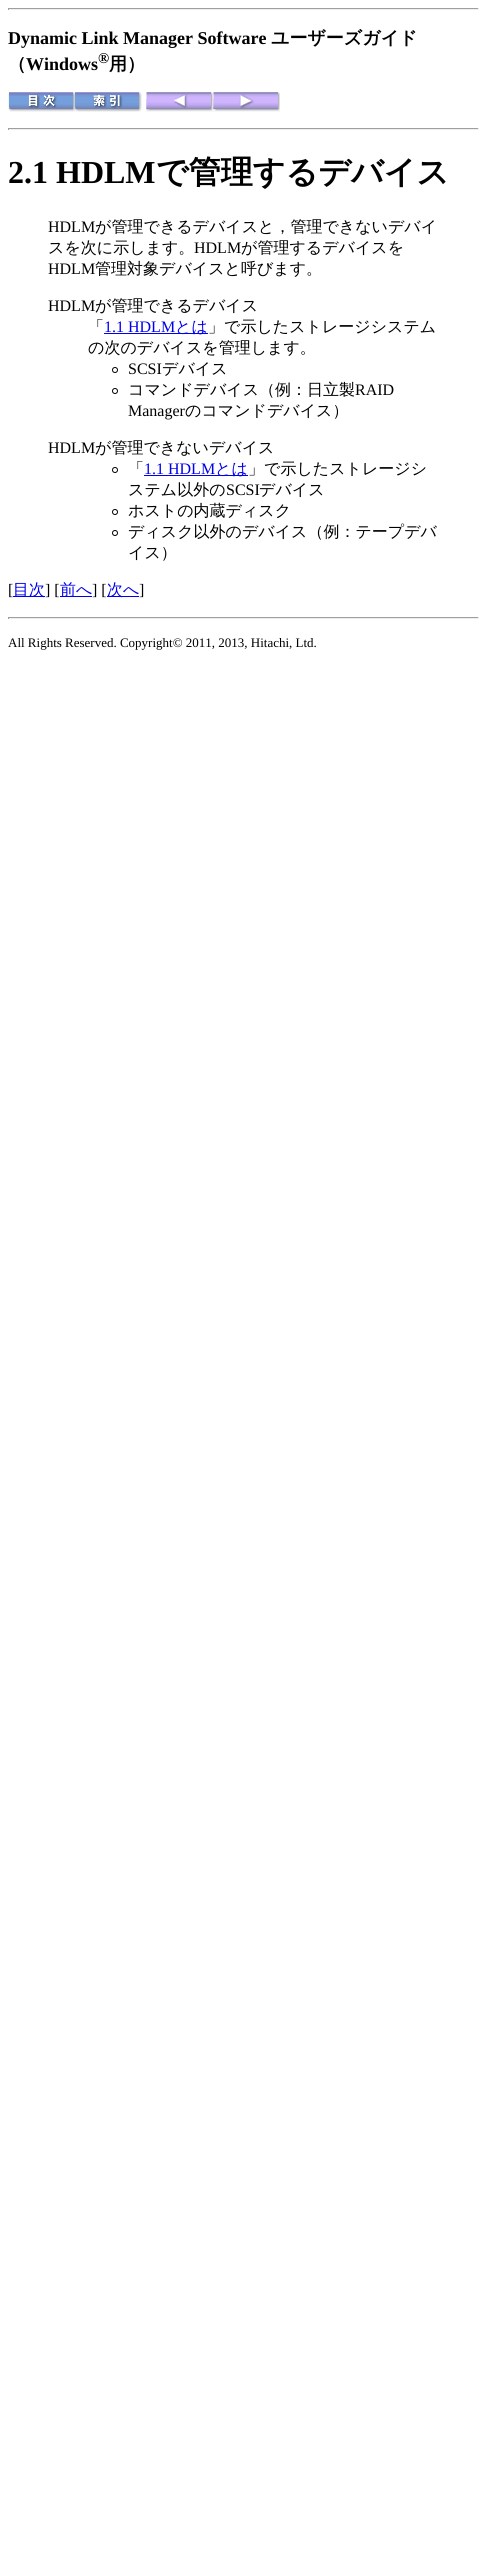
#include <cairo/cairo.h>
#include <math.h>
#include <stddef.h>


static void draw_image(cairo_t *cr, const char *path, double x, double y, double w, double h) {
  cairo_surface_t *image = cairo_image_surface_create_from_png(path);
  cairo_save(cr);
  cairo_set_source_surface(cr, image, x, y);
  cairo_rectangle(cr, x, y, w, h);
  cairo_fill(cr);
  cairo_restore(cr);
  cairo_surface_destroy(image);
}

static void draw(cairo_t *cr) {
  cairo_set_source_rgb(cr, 1, 1, 1);
  cairo_paint(cr);
  cairo_set_source_rgb(cr, 159 / 255.0, 159 / 255.0, 159 / 255.0);
  cairo_rectangle(cr, 8, 8, 471, 1);
  cairo_fill(cr);
  cairo_set_source_rgb(cr, 238 / 255.0, 238 / 255.0, 238 / 255.0);
  cairo_rectangle(cr, 478, 8, 1, 2);
  cairo_fill(cr);
  cairo_rectangle(cr, 8, 9, 471, 1);
  cairo_fill(cr);
  cairo_set_source_rgb(cr, 159 / 255.0, 159 / 255.0, 159 / 255.0);
  cairo_rectangle(cr, 8, 8, 1, 2);
  cairo_fill(cr);
  draw_image(cr, "images/1.png", 8, 92, 66, 20);
  draw_image(cr, "images/2.png", 74, 92, 68, 20);
  draw_image(cr, "images/3.png", 146, 92, 67, 20);
  draw_image(cr, "images/4.png", 213, 92, 67, 20);
  cairo_rectangle(cr, 8, 128, 471, 1);
  cairo_fill(cr);
  cairo_set_source_rgb(cr, 238 / 255.0, 238 / 255.0, 238 / 255.0);
  cairo_rectangle(cr, 478, 128, 1, 2);
  cairo_fill(cr);
  cairo_rectangle(cr, 8, 129, 471, 1);
  cairo_fill(cr);
  cairo_set_source_rgb(cr, 159 / 255.0, 159 / 255.0, 159 / 255.0);
  cairo_rectangle(cr, 8, 128, 1, 2);
  cairo_fill(cr);
  cairo_set_source_rgb(cr, 0, 0, 238 / 255.0);
  cairo_rectangle(cr, 104, 333, 104, 1);
  cairo_fill(cr);
  cairo_arc(cr, 115, 370, 2.5, 0, 2 * M_PI);
  cairo_set_source_rgb(cr, 0, 0, 0);
  cairo_set_line_width(cr, 1);
  cairo_stroke(cr);
  cairo_arc(cr, 115, 391, 2.5, 0, 2 * M_PI);
  cairo_stroke(cr);
  cairo_arc(cr, 115, 470, 2.5, 0, 2 * M_PI);
  cairo_stroke(cr);
  cairo_set_source_rgb(cr, 0, 0, 238 / 255.0);
  cairo_rectangle(cr, 144, 475, 104, 1);
  cairo_fill(cr);
  cairo_arc(cr, 115, 512, 2.5, 0, 2 * M_PI);
  cairo_set_source_rgb(cr, 0, 0, 0);
  cairo_stroke(cr);
  cairo_arc(cr, 115, 533, 2.5, 0, 2 * M_PI);
  cairo_stroke(cr);
  cairo_set_source_rgb(cr, 0, 0, 238 / 255.0);
  cairo_rectangle(cr, 13, 596, 32, 1);
  cairo_fill(cr);
  cairo_rectangle(cr, 60, 596, 32, 1);
  cairo_fill(cr);
  cairo_rectangle(cr, 107, 596, 32, 1);
  cairo_fill(cr);
  cairo_set_source_rgb(cr, 159 / 255.0, 159 / 255.0, 159 / 255.0);
  cairo_rectangle(cr, 8, 617, 471, 1);
  cairo_fill(cr);
  cairo_set_source_rgb(cr, 238 / 255.0, 238 / 255.0, 238 / 255.0);
  cairo_rectangle(cr, 478, 617, 1, 2);
  cairo_fill(cr);
  cairo_rectangle(cr, 8, 618, 471, 1);
  cairo_fill(cr);
  cairo_set_source_rgb(cr, 159 / 255.0, 159 / 255.0, 159 / 255.0);
  cairo_rectangle(cr, 8, 617, 1, 2);
  cairo_fill(cr);
  cairo_select_font_face(cr, "Liberation Serif", CAIRO_FONT_SLANT_NORMAL, CAIRO_FONT_WEIGHT_BOLD);
  cairo_set_font_size(cr, 18);
  cairo_set_source_rgb(cr, 0, 0, 0);
  cairo_move_to(cr, 8, 44);
  cairo_show_text(cr, "Dynamic Link Manager Software");
  cairo_select_font_face(cr, "WenQuanYi Zen Hei", CAIRO_FONT_SLANT_NORMAL, CAIRO_FONT_WEIGHT_BOLD);
  cairo_move_to(cr, 271, 44);
  cairo_show_text(cr, "ユーザーズガイド");
  cairo_move_to(cr, 8, 70);
  cairo_show_text(cr, "（");
  cairo_select_font_face(cr, "Liberation Serif", CAIRO_FONT_SLANT_NORMAL, CAIRO_FONT_WEIGHT_BOLD);
  cairo_move_to(cr, 26, 70);
  cairo_show_text(cr, "Windows");
  cairo_set_font_size(cr, 15);
  cairo_move_to(cr, 98, 63);
  cairo_show_text(cr, "®");
  cairo_select_font_face(cr, "WenQuanYi Zen Hei", CAIRO_FONT_SLANT_NORMAL, CAIRO_FONT_WEIGHT_BOLD);
  cairo_set_font_size(cr, 18);
  cairo_move_to(cr, 109, 70);
  cairo_show_text(cr, "用）");
  cairo_select_font_face(cr, "Liberation Serif", CAIRO_FONT_SLANT_NORMAL, CAIRO_FONT_WEIGHT_BOLD);
  cairo_set_font_size(cr, 32);
  cairo_move_to(cr, 8, 183);
  cairo_show_text(cr, "2.1 HDLM");
  cairo_select_font_face(cr, "WenQuanYi Zen Hei", CAIRO_FONT_SLANT_NORMAL, CAIRO_FONT_WEIGHT_BOLD);
  cairo_move_to(cr, 156, 183);
  cairo_show_text(cr, "で管理するデバイス");
  cairo_select_font_face(cr, "Liberation Serif", CAIRO_FONT_SLANT_NORMAL, CAIRO_FONT_WEIGHT_NORMAL);
  cairo_set_font_size(cr, 16);
  cairo_move_to(cr, 48, 232);
  cairo_show_text(cr, "HDLM");
  cairo_select_font_face(cr, "WenQuanYi Zen Hei Medium", CAIRO_FONT_SLANT_NORMAL, CAIRO_FONT_WEIGHT_NORMAL);
  cairo_move_to(cr, 95, 232);
  cairo_show_text(cr, "が管理できるデバイスと，管理できないデバイ");
  cairo_move_to(cr, 48, 253);
  cairo_show_text(cr, "スを次に示します。");
  cairo_select_font_face(cr, "Liberation Serif", CAIRO_FONT_SLANT_NORMAL, CAIRO_FONT_WEIGHT_NORMAL);
  cairo_move_to(cr, 194, 253);
  cairo_show_text(cr, "HDLM");
  cairo_select_font_face(cr, "WenQuanYi Zen Hei Medium", CAIRO_FONT_SLANT_NORMAL, CAIRO_FONT_WEIGHT_NORMAL);
  cairo_move_to(cr, 241, 253);
  cairo_show_text(cr, "が管理するデバイスを");
  cairo_select_font_face(cr, "Liberation Serif", CAIRO_FONT_SLANT_NORMAL, CAIRO_FONT_WEIGHT_NORMAL);
  cairo_move_to(cr, 48, 274);
  cairo_show_text(cr, "HDLM");
  cairo_select_font_face(cr, "WenQuanYi Zen Hei Medium", CAIRO_FONT_SLANT_NORMAL, CAIRO_FONT_WEIGHT_NORMAL);
  cairo_move_to(cr, 95, 274);
  cairo_show_text(cr, "管理対象デバイスと呼びます。");
  cairo_select_font_face(cr, "Liberation Serif", CAIRO_FONT_SLANT_NORMAL, CAIRO_FONT_WEIGHT_NORMAL);
  cairo_move_to(cr, 48, 311);
  cairo_show_text(cr, "HDLM");
  cairo_select_font_face(cr, "WenQuanYi Zen Hei Medium", CAIRO_FONT_SLANT_NORMAL, CAIRO_FONT_WEIGHT_NORMAL);
  cairo_move_to(cr, 95, 311);
  cairo_show_text(cr, "が管理できるデバイス");
  cairo_move_to(cr, 88, 332);
  cairo_show_text(cr, "「");
  cairo_select_font_face(cr, "Liberation Serif", CAIRO_FONT_SLANT_NORMAL, CAIRO_FONT_WEIGHT_NORMAL);
  cairo_set_source_rgb(cr, 0, 0, 238 / 255.0);
  cairo_move_to(cr, 104, 332);
  cairo_show_text(cr, "1.1 HDLM");
  cairo_select_font_face(cr, "WenQuanYi Zen Hei Medium", CAIRO_FONT_SLANT_NORMAL, CAIRO_FONT_WEIGHT_NORMAL);
  cairo_move_to(cr, 175, 332);
  cairo_show_text(cr, "とは");
  cairo_set_source_rgb(cr, 0, 0, 0);
  cairo_move_to(cr, 208, 332);
  cairo_show_text(cr, "」で示したストレージシステム");
  cairo_move_to(cr, 88, 353);
  cairo_show_text(cr, "の次のデバイスを管理します。");
  cairo_select_font_face(cr, "Liberation Serif", CAIRO_FONT_SLANT_NORMAL, CAIRO_FONT_WEIGHT_NORMAL);
  cairo_move_to(cr, 128, 374);
  cairo_show_text(cr, "SCSI");
  cairo_select_font_face(cr, "WenQuanYi Zen Hei Medium", CAIRO_FONT_SLANT_NORMAL, CAIRO_FONT_WEIGHT_NORMAL);
  cairo_move_to(cr, 162, 374);
  cairo_show_text(cr, "デバイス");
  cairo_move_to(cr, 128, 395);
  cairo_show_text(cr, "コマンドデバイス（例：日立製");
  cairo_select_font_face(cr, "Liberation Serif", CAIRO_FONT_SLANT_NORMAL, CAIRO_FONT_WEIGHT_NORMAL);
  cairo_move_to(cr, 355, 395);
  cairo_show_text(cr, "RAID");
  cairo_move_to(cr, 128, 416);
  cairo_show_text(cr, "Manager");
  cairo_select_font_face(cr, "WenQuanYi Zen Hei Medium", CAIRO_FONT_SLANT_NORMAL, CAIRO_FONT_WEIGHT_NORMAL);
  cairo_move_to(cr, 185, 416);
  cairo_show_text(cr, "のコマンドデバイス）");
  cairo_select_font_face(cr, "Liberation Serif", CAIRO_FONT_SLANT_NORMAL, CAIRO_FONT_WEIGHT_NORMAL);
  cairo_move_to(cr, 48, 453);
  cairo_show_text(cr, "HDLM");
  cairo_select_font_face(cr, "WenQuanYi Zen Hei Medium", CAIRO_FONT_SLANT_NORMAL, CAIRO_FONT_WEIGHT_NORMAL);
  cairo_move_to(cr, 95, 453);
  cairo_show_text(cr, "が管理できないデバイス");
  cairo_move_to(cr, 128, 474);
  cairo_show_text(cr, "「");
  cairo_select_font_face(cr, "Liberation Serif", CAIRO_FONT_SLANT_NORMAL, CAIRO_FONT_WEIGHT_NORMAL);
  cairo_set_source_rgb(cr, 0, 0, 238 / 255.0);
  cairo_move_to(cr, 144, 474);
  cairo_show_text(cr, "1.1 HDLM");
  cairo_select_font_face(cr, "WenQuanYi Zen Hei Medium", CAIRO_FONT_SLANT_NORMAL, CAIRO_FONT_WEIGHT_NORMAL);
  cairo_move_to(cr, 215, 474);
  cairo_show_text(cr, "とは");
  cairo_set_source_rgb(cr, 0, 0, 0);
  cairo_move_to(cr, 248, 474);
  cairo_show_text(cr, "」で示したストレージシ");
  cairo_move_to(cr, 128, 495);
  cairo_show_text(cr, "ステム以外の");
  cairo_select_font_face(cr, "Liberation Serif", CAIRO_FONT_SLANT_NORMAL, CAIRO_FONT_WEIGHT_NORMAL);
  cairo_move_to(cr, 226, 495);
  cairo_show_text(cr, "SCSI");
  cairo_select_font_face(cr, "WenQuanYi Zen Hei Medium", CAIRO_FONT_SLANT_NORMAL, CAIRO_FONT_WEIGHT_NORMAL);
  cairo_move_to(cr, 259, 495);
  cairo_show_text(cr, "デバイス");
  cairo_move_to(cr, 128, 516);
  cairo_show_text(cr, "ホストの内蔵ディスク");
  cairo_move_to(cr, 128, 537);
  cairo_show_text(cr, "ディスク以外のデバイス（例：テープデバ");
  cairo_move_to(cr, 128, 558);
  cairo_show_text(cr, "イス）");
  cairo_select_font_face(cr, "Liberation Serif", CAIRO_FONT_SLANT_NORMAL, CAIRO_FONT_WEIGHT_NORMAL);
  cairo_move_to(cr, 8, 595);
  cairo_show_text(cr, "[");
  cairo_select_font_face(cr, "WenQuanYi Zen Hei Medium", CAIRO_FONT_SLANT_NORMAL, CAIRO_FONT_WEIGHT_NORMAL);
  cairo_set_source_rgb(cr, 0, 0, 238 / 255.0);
  cairo_move_to(cr, 13, 595);
  cairo_show_text(cr, "目次");
  cairo_select_font_face(cr, "Liberation Serif", CAIRO_FONT_SLANT_NORMAL, CAIRO_FONT_WEIGHT_NORMAL);
  cairo_set_source_rgb(cr, 0, 0, 0);
  cairo_move_to(cr, 45, 595);
  cairo_show_text(cr, "] [");
  cairo_select_font_face(cr, "WenQuanYi Zen Hei Medium", CAIRO_FONT_SLANT_NORMAL, CAIRO_FONT_WEIGHT_NORMAL);
  cairo_set_source_rgb(cr, 0, 0, 238 / 255.0);
  cairo_move_to(cr, 60, 595);
  cairo_show_text(cr, "前へ");
  cairo_select_font_face(cr, "Liberation Serif", CAIRO_FONT_SLANT_NORMAL, CAIRO_FONT_WEIGHT_NORMAL);
  cairo_set_source_rgb(cr, 0, 0, 0);
  cairo_move_to(cr, 92, 595);
  cairo_show_text(cr, "] [");
  cairo_select_font_face(cr, "WenQuanYi Zen Hei Medium", CAIRO_FONT_SLANT_NORMAL, CAIRO_FONT_WEIGHT_NORMAL);
  cairo_set_source_rgb(cr, 0, 0, 238 / 255.0);
  cairo_move_to(cr, 107, 595);
  cairo_show_text(cr, "次へ");
  cairo_select_font_face(cr, "Liberation Serif", CAIRO_FONT_SLANT_NORMAL, CAIRO_FONT_WEIGHT_NORMAL);
  cairo_set_source_rgb(cr, 0, 0, 0);
  cairo_move_to(cr, 139, 595);
  cairo_show_text(cr, "]");
  cairo_set_font_size(cr, 13);
  cairo_move_to(cr, 8, 647);
  cairo_show_text(cr, "All Rights Reserved. Copyright© 2011, 2013, Hitachi, Ltd.");
}

int main(void) {
  cairo_surface_t *surface = cairo_image_surface_create(CAIRO_FORMAT_RGB24, 487, 2565);
  cairo_t *cr = cairo_create(surface);
  cairo_font_options_t *options = cairo_font_options_create();
  cairo_font_options_set_hint_metrics(options, CAIRO_HINT_METRICS_OFF);
  cairo_font_options_set_hint_style(options, CAIRO_HINT_STYLE_NONE);
  cairo_set_font_options(cr, options);
  cairo_set_miter_limit(cr, 4);
  draw(cr);
  cairo_surface_write_to_png(surface, "out.png");
  cairo_font_options_destroy(options);
  cairo_destroy(cr);
  cairo_surface_destroy(surface);
  return 0;
}
